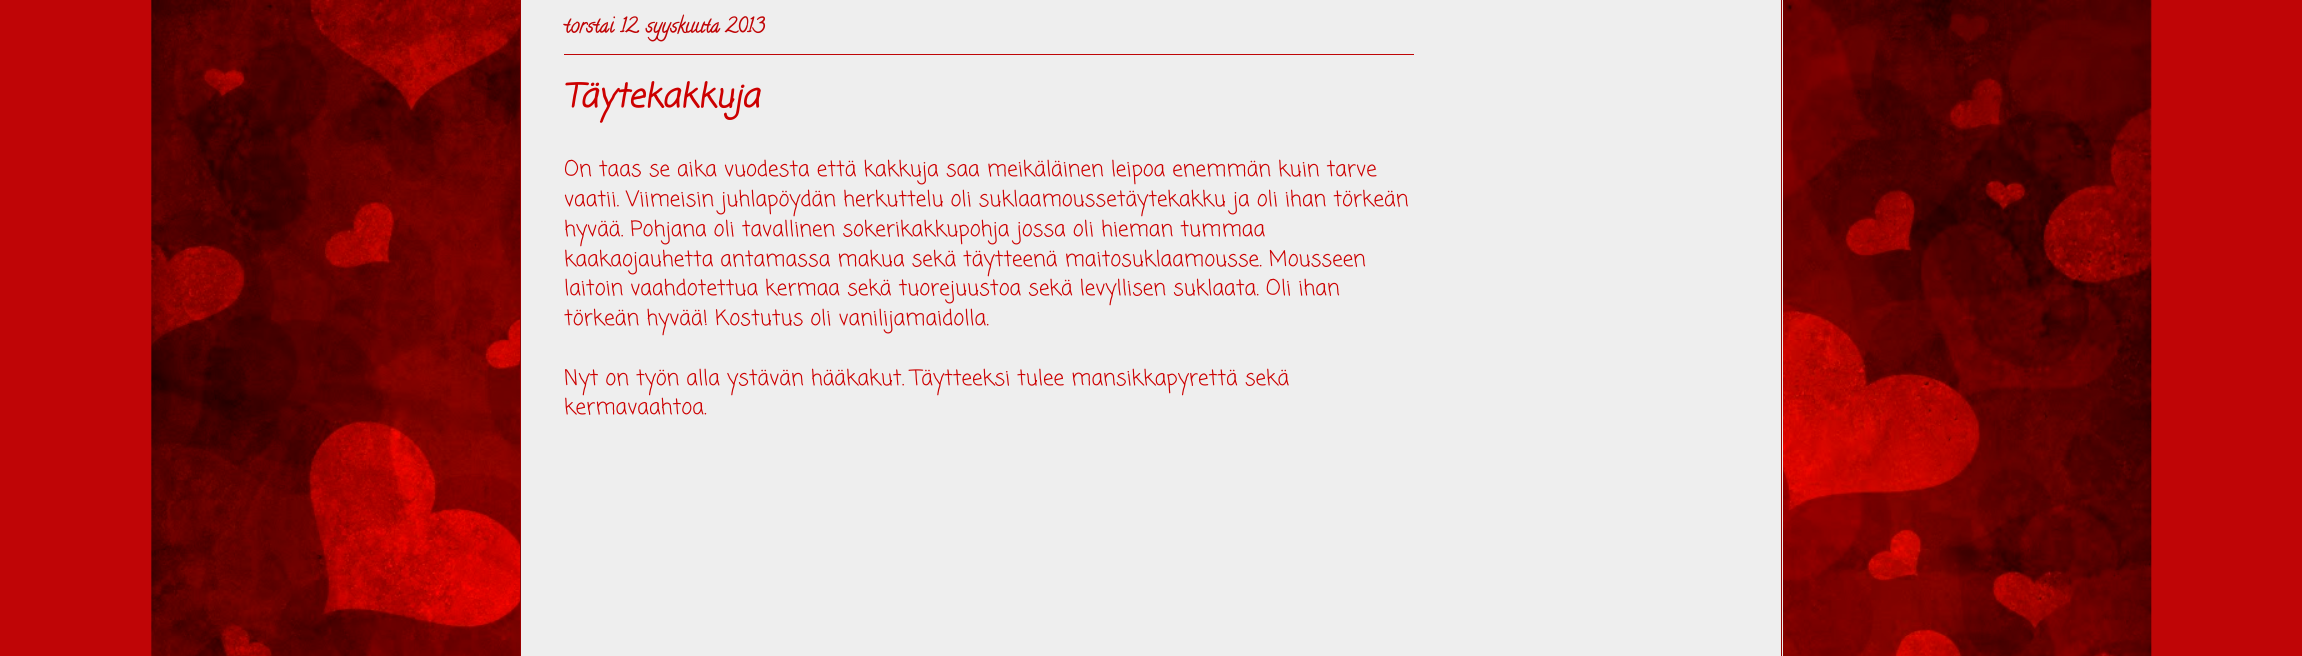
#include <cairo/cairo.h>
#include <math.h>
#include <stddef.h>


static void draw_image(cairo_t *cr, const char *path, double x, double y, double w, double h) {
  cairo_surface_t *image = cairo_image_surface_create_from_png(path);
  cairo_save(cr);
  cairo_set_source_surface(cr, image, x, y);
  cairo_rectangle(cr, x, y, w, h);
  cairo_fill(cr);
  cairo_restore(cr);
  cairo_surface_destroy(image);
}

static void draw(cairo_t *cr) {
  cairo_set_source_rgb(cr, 191 / 255.0, 5 / 255.0, 6 / 255.0);
  cairo_paint(cr);
  draw_image(cr, "images/1.png", 151, 0, 2001, 656);
  cairo_set_source_rgb(cr, 238 / 255.0, 238 / 255.0, 238 / 255.0);
  cairo_rectangle(cr, 521, 0, 1262, 656);
  cairo_fill(cr);
  cairo_set_source_rgb(cr, 153 / 255.0, 0, 0);
  cairo_rectangle(cr, 1781, 0, 1, 656);
  cairo_fill(cr);
  cairo_rectangle(cr, 520, 0, 1, 656);
  cairo_fill(cr);
  cairo_set_source_rgb(cr, 191 / 255.0, 5 / 255.0, 6 / 255.0);
  cairo_rectangle(cr, 564, 54, 850, 1);
  cairo_fill(cr);
  cairo_select_font_face(cr, "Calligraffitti", CAIRO_FONT_SLANT_NORMAL, CAIRO_FONT_WEIGHT_BOLD);
  cairo_set_font_size(cr, 20);
  cairo_move_to(cr, 564, 32);
  cairo_show_text(cr, "torstai 12. syyskuuta 2013");
  cairo_select_font_face(cr, "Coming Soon", CAIRO_FONT_SLANT_ITALIC, CAIRO_FONT_WEIGHT_BOLD);
  cairo_set_font_size(cr, 32.5);
  cairo_set_source_rgb(cr, 204 / 255.0, 0, 0);
  cairo_move_to(cr, 564, 107);
  cairo_show_text(cr, "Täytekakkuja");
  cairo_select_font_face(cr, "Coming Soon", CAIRO_FONT_SLANT_NORMAL, CAIRO_FONT_WEIGHT_NORMAL);
  cairo_set_font_size(cr, 21.25);
  cairo_move_to(cr, 564, 176);
  cairo_show_text(cr, "On taas se aika vuodesta että kakkuja saa meikäläinen leipoa enemmän kuin tarve");
  cairo_move_to(cr, 564, 206);
  cairo_show_text(cr, "vaatii. Viimeisin juhlapöydän herkuttelu oli suklaamoussetäytekakku ja oli ihan törkeän");
  cairo_move_to(cr, 564, 236);
  cairo_show_text(cr, "hyvää. Pohjana oli tavallinen sokerikakkupohja jossa oli hieman tummaa");
  cairo_move_to(cr, 564, 266);
  cairo_show_text(cr, "kaakaojauhetta antamassa makua sekä täytteenä maitosuklaamousse. Mousseen");
  cairo_move_to(cr, 564, 295);
  cairo_show_text(cr, "laitoin vaahdotettua kermaa sekä tuorejuustoa sekä levyllisen suklaata. Oli ihan");
  cairo_move_to(cr, 564, 325);
  cairo_show_text(cr, "törkeän hyvää! Kostutus oli vanilijamaidolla.");
  cairo_move_to(cr, 564, 385);
  cairo_show_text(cr, "Nyt on työn alla ystävän hääkakut. Täytteeksi tulee mansikkapyrettä sekä");
  cairo_move_to(cr, 564, 414);
  cairo_show_text(cr, "kermavaahtoa.");
}

int main(void) {
  cairo_surface_t *surface = cairo_image_surface_create(CAIRO_FORMAT_RGB24, 2302, 656);
  cairo_t *cr = cairo_create(surface);
  cairo_font_options_t *options = cairo_font_options_create();
  cairo_font_options_set_hint_metrics(options, CAIRO_HINT_METRICS_OFF);
  cairo_font_options_set_hint_style(options, CAIRO_HINT_STYLE_NONE);
  cairo_set_font_options(cr, options);
  cairo_set_miter_limit(cr, 4);
  draw(cr);
  cairo_surface_write_to_png(surface, "out.png");
  cairo_font_options_destroy(options);
  cairo_destroy(cr);
  cairo_surface_destroy(surface);
  return 0;
}
